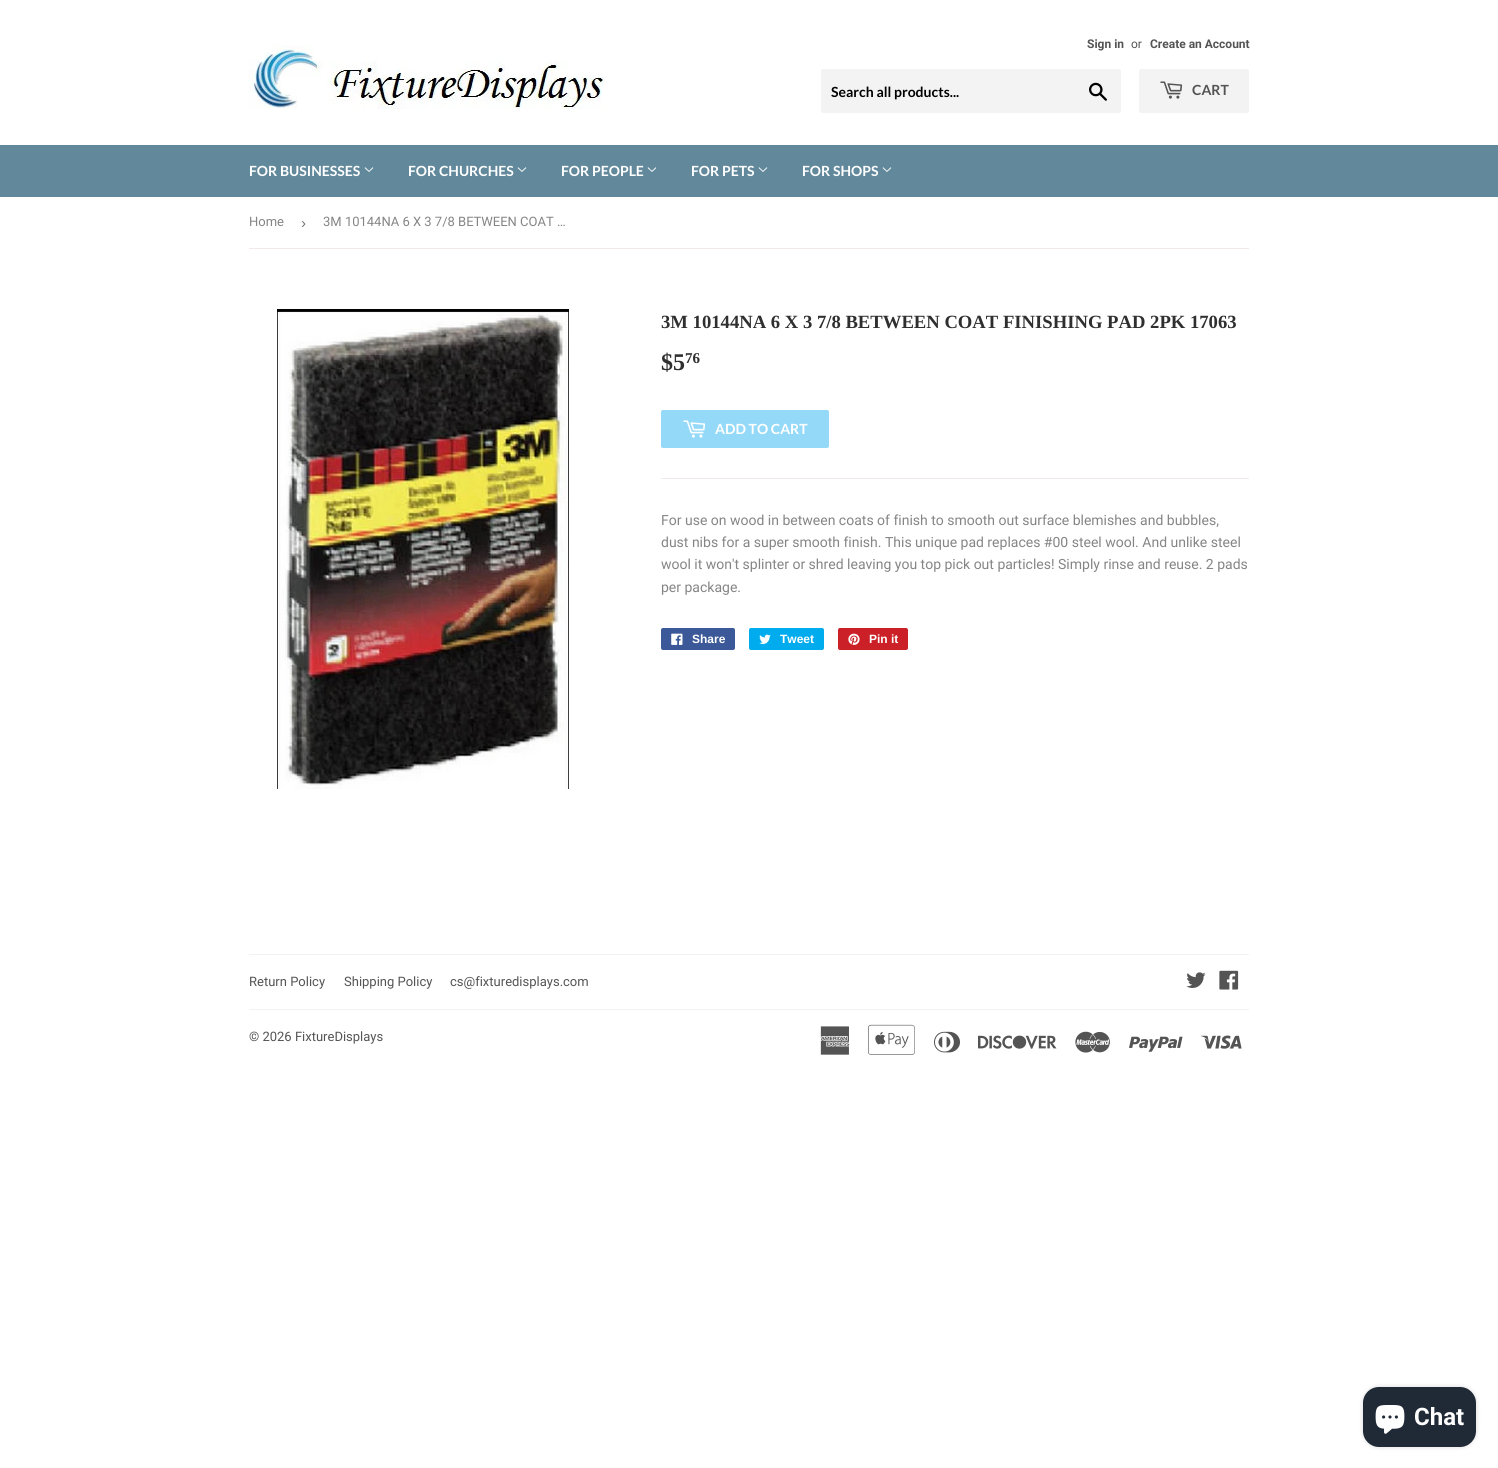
#include <cairo/cairo.h>
#include <math.h>
#include <stddef.h>


static void rounded_rect(cairo_t *cr, double x, double y, double w, double h, double r) {
  cairo_new_sub_path(cr);
  cairo_arc(cr, x + w - r, y + h - r, r, 0, M_PI / 2);
  cairo_arc(cr, x + r, y + h - r, r, M_PI / 2, M_PI);
  cairo_arc(cr, x + r, y + r, r, M_PI, 1.5 * M_PI);
  cairo_arc(cr, x + w - r, y + r, r, 1.5 * M_PI, 2 * M_PI);
  cairo_close_path(cr);
}

static void draw_shadow(cairo_t *cr, double x, double y, double w, double h, double r, double blur, double alpha) {
  cairo_push_group_with_content(cr, CAIRO_CONTENT_ALPHA);
  cairo_set_operator(cr, CAIRO_OPERATOR_SOURCE);
  for (int i = 15; i >= -15 && fmin(w, h) + blur * i / 3 > 0; i -= 2) {
    double e = blur * i / 6;
    cairo_set_source_rgba(cr, 0, 0, 0, alpha * erfc((i - 1) / 8.5) / 2);
    rounded_rect(cr, x - e, y - e, w + 2 * e, h + 2 * e, fmax(0, fmin(r + e + blur * .6, fmin(w, h) / 2 + e)));
    cairo_fill(cr);
  }
  cairo_pattern_t *soft = cairo_pop_group(cr);
  cairo_mask(cr, soft);
  cairo_pattern_destroy(soft);
}

static void draw_image(cairo_t *cr, const char *path, double x, double y, double w, double h) {
  cairo_surface_t *image = cairo_image_surface_create_from_png(path);
  cairo_save(cr);
  cairo_set_source_surface(cr, image, x, y);
  cairo_rectangle(cr, x, y, w, h);
  cairo_fill(cr);
  cairo_restore(cr);
  cairo_surface_destroy(image);
}

static void draw(cairo_t *cr) {
  cairo_set_source_rgb(cr, 1, 1, 1);
  cairo_paint(cr);
  draw_image(cr, "images/1.png", 249, 45, 357, 64);
  cairo_set_source_rgb(cr, 243 / 255.0, 243 / 255.0, 243 / 255.0);
  rounded_rect(cr, 821, 69, 300, 44, 2);
  cairo_fill(cr);
  draw_image(cr, "images/2.png", 1089, 82, 18, 19);
  rounded_rect(cr, 1139, 69, 110, 44, 2);
  cairo_fill(cr);
  draw_image(cr, "images/3.png", 1160, 81, 23, 18);
  cairo_set_source_rgb(cr, 98 / 255.0, 137 / 255.0, 155 / 255.0);
  cairo_rectangle(cr, 0, 145, 1498, 52);
  cairo_fill(cr);
  draw_image(cr, "images/4.png", 364, 167, 10, 5);
  draw_image(cr, "images/4.png", 517, 167, 10, 5);
  draw_image(cr, "images/4.png", 647, 167, 10, 5);
  draw_image(cr, "images/4.png", 758, 167, 10, 5);
  draw_image(cr, "images/4.png", 882, 167, 10, 5);
  cairo_set_source_rgb(cr, 244 / 255.0, 233 / 255.0, 233 / 255.0);
  cairo_rectangle(cr, 249, 248, 1000, 1);
  cairo_fill(cr);
  draw_image(cr, "images/5.png", 277, 309, 292, 480);
  cairo_set_source_rgb(cr, 148 / 255.0, 217 / 255.0, 248 / 255.0);
  rounded_rect(cr, 661, 410, 168, 38, 2);
  cairo_fill(cr);
  draw_image(cr, "images/6.png", 683, 420, 23, 18);
  cairo_set_source_rgb(cr, 244 / 255.0, 233 / 255.0, 233 / 255.0);
  cairo_rectangle(cr, 661, 478, 588, 1);
  cairo_fill(cr);
  cairo_set_source_rgb(cr, 59 / 255.0, 89 / 255.0, 152 / 255.0);
  rounded_rect(cr, 661, 628, 74, 22, 2);
  cairo_fill(cr);
  draw_image(cr, "images/7.png", 671, 633, 12, 12);
  cairo_set_source_rgb(cr, 0, 172 / 255.0, 237 / 255.0);
  rounded_rect(cr, 749, 628, 75, 22, 2);
  cairo_fill(cr);
  draw_image(cr, "images/8.png", 759, 634, 12, 10);
  cairo_set_source_rgb(cr, 203 / 255.0, 32 / 255.0, 39 / 255.0);
  rounded_rect(cr, 838, 628, 70, 22, 2);
  cairo_fill(cr);
  draw_image(cr, "images/9.png", 848, 633, 12, 12);
  cairo_set_source_rgb(cr, 242 / 255.0, 242 / 255.0, 242 / 255.0);
  cairo_rectangle(cr, 249, 954, 1000, 1);
  cairo_fill(cr);
  draw_image(cr, "images/10.png", 1186, 972, 20, 16);
  draw_image(cr, "images/11.png", 1219, 970, 20, 20);
  cairo_rectangle(cr, 249, 1009, 1000, 1);
  cairo_fill(cr);
  draw_image(cr, "images/12.png", 820, 1026, 30, 29);
  draw_image(cr, "images/13.png", 868, 1024, 47, 31);
  draw_image(cr, "images/14.png", 934, 1031, 26, 22);
  draw_image(cr, "images/15.png", 978, 1035, 79, 14);
  draw_image(cr, "images/16.png", 1075, 1031, 35, 22);
  draw_image(cr, "images/17.png", 1129, 1036, 54, 16);
  draw_image(cr, "images/18.png", 1201, 1035, 41, 14);
  cairo_set_source_rgb(cr, 0, 0, 0);
  draw_shadow(cr, 1363, 1387, 113, 60, 16, 2.5, 0.15);
  cairo_set_source_rgb(cr, 32 / 255.0, 42 / 255.0, 54 / 255.0);
  rounded_rect(cr, 1363, 1387, 113, 60, 16);
  cairo_fill(cr);
  draw_image(cr, "images/19.png", 1375, 1405, 30, 29);
  cairo_select_font_face(cr, "Roboto", CAIRO_FONT_SLANT_NORMAL, CAIRO_FONT_WEIGHT_BOLD);
  cairo_set_font_size(cr, 12);
  cairo_set_source_rgb(cr, 84 / 255.0, 84 / 255.0, 84 / 255.0);
  cairo_move_to(cr, 1087, 48);
  cairo_show_text(cr, "Sign in");
  cairo_select_font_face(cr, "Roboto", CAIRO_FONT_SLANT_NORMAL, CAIRO_FONT_WEIGHT_NORMAL);
  cairo_move_to(cr, 1131, 48);
  cairo_show_text(cr, "or");
  cairo_select_font_face(cr, "Roboto", CAIRO_FONT_SLANT_NORMAL, CAIRO_FONT_WEIGHT_BOLD);
  cairo_move_to(cr, 1150, 48);
  cairo_show_text(cr, "Create an Account");
  cairo_select_font_face(cr, "Lato", CAIRO_FONT_SLANT_NORMAL, CAIRO_FONT_WEIGHT_BOLD);
  cairo_set_font_size(cr, 14);
  cairo_set_source_rgb(cr, 0, 0, 0);
  cairo_move_to(cr, 831, 97);
  cairo_show_text(cr, "Search all products...");
  cairo_set_source_rgb(cr, 84 / 255.0, 84 / 255.0, 84 / 255.0);
  cairo_move_to(cr, 1192, 95);
  cairo_show_text(cr, "CART");
  cairo_set_source_rgb(cr, 1, 1, 1);
  cairo_move_to(cr, 249, 176);
  cairo_show_text(cr, "FOR BUSINESSES");
  cairo_move_to(cr, 408, 176);
  cairo_show_text(cr, "FOR CHURCHES");
  cairo_move_to(cr, 561, 176);
  cairo_show_text(cr, "FOR PEOPLE");
  cairo_move_to(cr, 691, 176);
  cairo_show_text(cr, "FOR PETS");
  cairo_move_to(cr, 802, 176);
  cairo_show_text(cr, "FOR SHOPS");
  cairo_select_font_face(cr, "Roboto", CAIRO_FONT_SLANT_NORMAL, CAIRO_FONT_WEIGHT_NORMAL);
  cairo_set_font_size(cr, 13);
  cairo_set_source_rgb(cr, 133 / 255.0, 133 / 255.0, 133 / 255.0);
  cairo_move_to(cr, 249, 226);
  cairo_show_text(cr, "Home");
  cairo_select_font_face(cr, "Liberation Sans", CAIRO_FONT_SLANT_NORMAL, CAIRO_FONT_WEIGHT_NORMAL);
  cairo_set_font_size(cr, 15);
  cairo_set_source_rgb(cr, 118 / 255.0, 118 / 255.0, 118 / 255.0);
  cairo_move_to(cr, 301, 228);
  cairo_show_text(cr, "›");
  cairo_select_font_face(cr, "Roboto", CAIRO_FONT_SLANT_NORMAL, CAIRO_FONT_WEIGHT_NORMAL);
  cairo_set_font_size(cr, 13);
  cairo_set_source_rgb(cr, 133 / 255.0, 133 / 255.0, 133 / 255.0);
  cairo_move_to(cr, 323, 226);
  cairo_show_text(cr, "3M 10144NA 6 X 3 7/8 BETWEEN COAT …");
  cairo_select_font_face(cr, "Liberation Serif", CAIRO_FONT_SLANT_NORMAL, CAIRO_FONT_WEIGHT_BOLD);
  cairo_set_font_size(cr, 18.65);
  cairo_set_source_rgb(cr, 47 / 255.0, 47 / 255.0, 47 / 255.0);
  cairo_move_to(cr, 661, 328);
  cairo_show_text(cr, "3M 10144NA 6 X 3 7/8 BETWEEN COAT FINISHING PAD 2PK 17063");
  cairo_set_font_size(cr, 24);
  cairo_move_to(cr, 661, 370);
  cairo_show_text(cr, "$5");
  cairo_set_font_size(cr, 15);
  cairo_move_to(cr, 685, 363);
  cairo_show_text(cr, "76");
  cairo_select_font_face(cr, "Lato", CAIRO_FONT_SLANT_NORMAL, CAIRO_FONT_WEIGHT_BOLD);
  cairo_set_font_size(cr, 14);
  cairo_set_source_rgb(cr, 1, 1, 1);
  cairo_move_to(cr, 715, 434);
  cairo_show_text(cr, "ADD TO CART");
  cairo_select_font_face(cr, "Roboto", CAIRO_FONT_SLANT_NORMAL, CAIRO_FONT_WEIGHT_NORMAL);
  cairo_set_source_rgb(cr, 133 / 255.0, 133 / 255.0, 133 / 255.0);
  cairo_move_to(cr, 661, 525);
  cairo_show_text(cr, "For use on wood in between coats of finish to smooth out surface blemishes and bubbles,");
  cairo_move_to(cr, 661, 547);
  cairo_show_text(cr, "dust nibs for a super smooth finish. This unique pad replaces #00 steel wool. And unlike steel");
  cairo_move_to(cr, 661, 569);
  cairo_show_text(cr, "wool it won't splinter or shred leaving you top pick out particles! Simply rinse and reuse. 2 pads");
  cairo_move_to(cr, 661, 592);
  cairo_show_text(cr, "per package.");
  cairo_select_font_face(cr, "Liberation Sans", CAIRO_FONT_SLANT_NORMAL, CAIRO_FONT_WEIGHT_BOLD);
  cairo_set_font_size(cr, 12);
  cairo_set_source_rgb(cr, 1, 1, 1);
  cairo_move_to(cr, 692, 643);
  cairo_show_text(cr, "Share");
  cairo_move_to(cr, 780, 643);
  cairo_show_text(cr, "Tweet");
  cairo_move_to(cr, 869, 643);
  cairo_show_text(cr, "Pin it");
  cairo_select_font_face(cr, "Roboto", CAIRO_FONT_SLANT_NORMAL, CAIRO_FONT_WEIGHT_NORMAL);
  cairo_set_font_size(cr, 13);
  cairo_set_source_rgb(cr, 84 / 255.0, 84 / 255.0, 84 / 255.0);
  cairo_move_to(cr, 249, 986);
  cairo_show_text(cr, "Return Policy");
  cairo_move_to(cr, 344, 986);
  cairo_show_text(cr, "Shipping Policy");
  cairo_move_to(cr, 450, 986);
  cairo_show_text(cr, "cs@fixturedisplays.com");
  cairo_move_to(cr, 249, 1041);
  cairo_show_text(cr, "© 2026 FixtureDisplays");
  cairo_select_font_face(cr, "Roboto", CAIRO_FONT_SLANT_NORMAL, CAIRO_FONT_WEIGHT_BOLD);
  cairo_set_font_size(cr, 24);
  cairo_set_source_rgb(cr, 1, 1, 1);
  cairo_move_to(cr, 1414, 1425);
  cairo_show_text(cr, "Chat");
}

int main(void) {
  cairo_surface_t *surface = cairo_image_surface_create(CAIRO_FORMAT_RGB24, 1498, 1468);
  cairo_t *cr = cairo_create(surface);
  cairo_font_options_t *options = cairo_font_options_create();
  cairo_font_options_set_hint_metrics(options, CAIRO_HINT_METRICS_OFF);
  cairo_font_options_set_hint_style(options, CAIRO_HINT_STYLE_NONE);
  cairo_set_font_options(cr, options);
  cairo_set_miter_limit(cr, 4);
  draw(cr);
  cairo_surface_write_to_png(surface, "out.png");
  cairo_font_options_destroy(options);
  cairo_destroy(cr);
  cairo_surface_destroy(surface);
  return 0;
}
